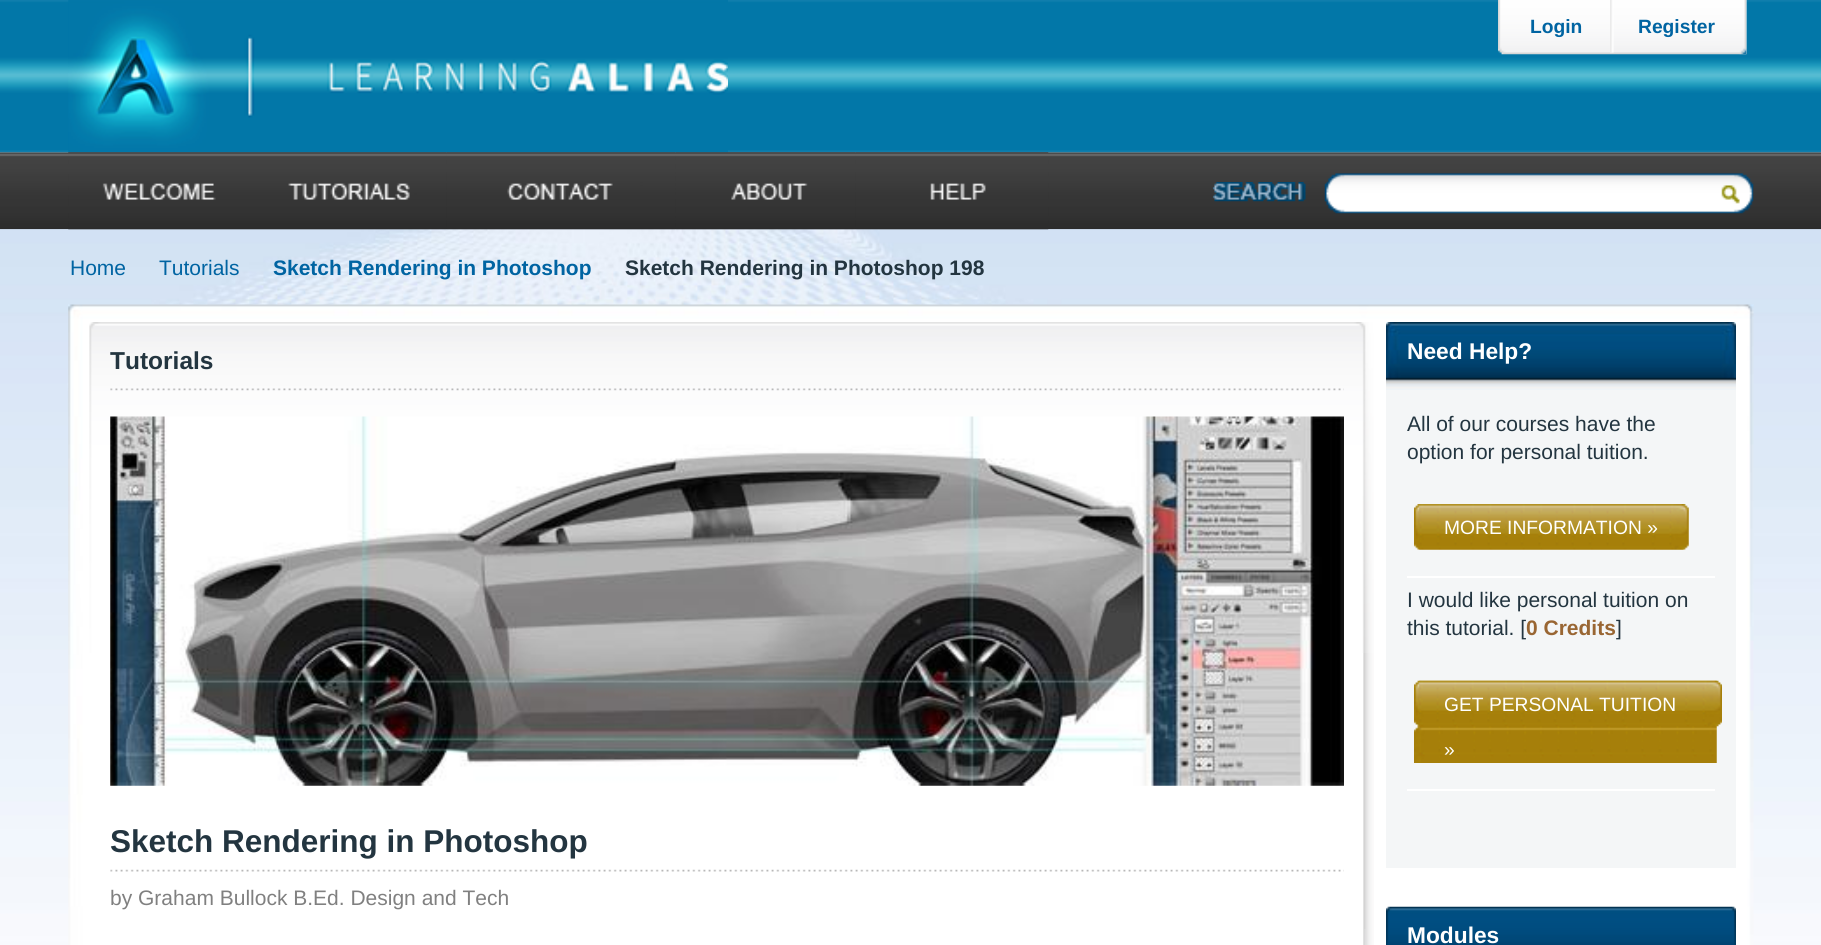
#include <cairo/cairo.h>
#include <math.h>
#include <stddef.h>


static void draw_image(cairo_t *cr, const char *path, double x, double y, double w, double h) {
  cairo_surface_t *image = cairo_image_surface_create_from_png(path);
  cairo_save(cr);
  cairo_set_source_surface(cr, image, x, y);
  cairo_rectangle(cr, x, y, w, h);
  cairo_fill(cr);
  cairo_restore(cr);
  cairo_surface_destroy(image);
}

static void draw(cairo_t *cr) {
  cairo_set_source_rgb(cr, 1, 1, 1);
  cairo_paint(cr);
  draw_image(cr, "images/1.png", 0, 229, 1821, 716);
  draw_image(cr, "images/7.png", 0, 152, 1821, 78);
  draw_image(cr, "images/2.png", 0, 0, 1821, 153);
  draw_image(cr, "images/3.png", 68, 0, 660, 153);
  draw_image(cr, "images/4.png", 1498, 0, 249, 55);
  draw_image(cr, "images/5.png", 1739, 0, 8, 55);
  draw_image(cr, "images/6.png", 1610, 0, 4, 53);
  draw_image(cr, "images/15.png", 0, 229, 1821, 521);
  draw_image(cr, "images/8.png", 68, 152, 184, 78);
  draw_image(cr, "images/9.png", 252, 152, 195, 78);
  draw_image(cr, "images/10.png", 446, 152, 230, 78);
  draw_image(cr, "images/11.png", 675, 152, 181, 78);
  draw_image(cr, "images/12.png", 855, 152, 194, 78);
  draw_image(cr, "images/13.png", 1212, 182, 94, 20);
  draw_image(cr, "images/14.png", 1324, 173, 430, 41);
  draw_image(cr, "images/16.png", 68, 304, 1686, 641);
  draw_image(cr, "images/17.png", 1363, 653, 11, 292);
  draw_image(cr, "images/18.png", 89, 322, 1285, 331);
  draw_image(cr, "images/19.png", 1364, 929, 2, 16);
  draw_image(cr, "images/20.png", 110, 388, 1234, 3);
  draw_image(cr, "images/21.png", 110, 416, 1234, 370);
  draw_image(cr, "images/22.png", 110, 869, 1234, 3);
  cairo_set_source_rgb(cr, 244 / 255.0, 246 / 255.0, 247 / 255.0);
  cairo_rectangle(cr, 1386, 390, 350, 478);
  cairo_fill(cr);
  draw_image(cr, "images/23.png", 1386, 322, 350, 68);
  cairo_set_source_rgb(cr, 1, 1, 1);
  cairo_rectangle(cr, 1407, 576, 308, 2);
  cairo_fill(cr);
  draw_image(cr, "images/24.png", 1414, 504, 270, 46);
  draw_image(cr, "images/25.png", 1419, 504, 270, 46);
  cairo_rectangle(cr, 1407, 789, 308, 2);
  cairo_fill(cr);
  draw_image(cr, "images/26.png", 1414, 680, 303, 83);
  draw_image(cr, "images/27.png", 1419, 680, 303, 47);
  draw_image(cr, "images/28.png", 1386, 906, 350, 39);
  cairo_select_font_face(cr, "Liberation Sans", CAIRO_FONT_SLANT_NORMAL, CAIRO_FONT_WEIGHT_BOLD);
  cairo_set_font_size(cr, 19.25);
  cairo_set_source_rgb(cr, 0, 100 / 255.0, 162 / 255.0);
  cairo_move_to(cr, 1530, 33);
  cairo_show_text(cr, "Login");
  cairo_move_to(cr, 1638, 33);
  cairo_show_text(cr, "Register");
  cairo_select_font_face(cr, "Liberation Sans", CAIRO_FONT_SLANT_NORMAL, CAIRO_FONT_WEIGHT_NORMAL);
  cairo_set_font_size(cr, 21);
  cairo_move_to(cr, 70, 275);
  cairo_show_text(cr, "Home");
  cairo_move_to(cr, 159, 275);
  cairo_show_text(cr, "Tutorials");
  cairo_select_font_face(cr, "Liberation Sans", CAIRO_FONT_SLANT_NORMAL, CAIRO_FONT_WEIGHT_BOLD);
  cairo_move_to(cr, 273, 275);
  cairo_show_text(cr, "Sketch Rendering in Photoshop");
  cairo_set_source_rgb(cr, 35 / 255.0, 53 / 255.0, 64 / 255.0);
  cairo_move_to(cr, 625, 275);
  cairo_show_text(cr, "Sketch Rendering in Photoshop 198");
  cairo_set_font_size(cr, 24.5);
  cairo_move_to(cr, 110, 369);
  cairo_show_text(cr, "Tutorials");
  cairo_set_font_size(cr, 31.5);
  cairo_move_to(cr, 110, 852);
  cairo_show_text(cr, "Sketch Rendering in Photoshop");
  cairo_select_font_face(cr, "Liberation Sans", CAIRO_FONT_SLANT_NORMAL, CAIRO_FONT_WEIGHT_NORMAL);
  cairo_set_font_size(cr, 21);
  cairo_set_source_rgb(cr, 128 / 255.0, 128 / 255.0, 128 / 255.0);
  cairo_move_to(cr, 110, 905);
  cairo_show_text(cr, "by Graham Bullock B.Ed. Design and Tech");
  cairo_select_font_face(cr, "Liberation Sans", CAIRO_FONT_SLANT_NORMAL, CAIRO_FONT_WEIGHT_BOLD);
  cairo_set_font_size(cr, 22.75);
  cairo_set_source_rgb(cr, 1, 1, 1);
  cairo_move_to(cr, 1407, 359);
  cairo_show_text(cr, "Need Help?");
  cairo_select_font_face(cr, "Liberation Sans", CAIRO_FONT_SLANT_NORMAL, CAIRO_FONT_WEIGHT_NORMAL);
  cairo_set_font_size(cr, 21);
  cairo_set_source_rgb(cr, 35 / 255.0, 53 / 255.0, 64 / 255.0);
  cairo_move_to(cr, 1407, 431);
  cairo_show_text(cr, "All of our courses have the");
  cairo_move_to(cr, 1407, 459);
  cairo_show_text(cr, "option for personal tuition.");
  cairo_set_font_size(cr, 19.25);
  cairo_set_source_rgb(cr, 1, 1, 1);
  cairo_move_to(cr, 1444, 534);
  cairo_show_text(cr, "MORE INFORMATION »");
  cairo_set_font_size(cr, 21);
  cairo_set_source_rgb(cr, 35 / 255.0, 53 / 255.0, 64 / 255.0);
  cairo_move_to(cr, 1407, 607);
  cairo_show_text(cr, "I would like personal tuition on");
  cairo_move_to(cr, 1407, 635);
  cairo_show_text(cr, "this tutorial. [");
  cairo_select_font_face(cr, "Liberation Sans", CAIRO_FONT_SLANT_NORMAL, CAIRO_FONT_WEIGHT_BOLD);
  cairo_set_source_rgb(cr, 153 / 255.0, 102 / 255.0, 51 / 255.0);
  cairo_move_to(cr, 1526, 635);
  cairo_show_text(cr, "0 Credits");
  cairo_select_font_face(cr, "Liberation Sans", CAIRO_FONT_SLANT_NORMAL, CAIRO_FONT_WEIGHT_NORMAL);
  cairo_set_source_rgb(cr, 35 / 255.0, 53 / 255.0, 64 / 255.0);
  cairo_move_to(cr, 1616, 635);
  cairo_show_text(cr, "]");
  cairo_set_font_size(cr, 19.25);
  cairo_set_source_rgb(cr, 1, 1, 1);
  cairo_move_to(cr, 1444, 711);
  cairo_show_text(cr, "GET PERSONAL TUITION");
  cairo_move_to(cr, 1444, 756);
  cairo_show_text(cr, "»");
  cairo_select_font_face(cr, "Liberation Sans", CAIRO_FONT_SLANT_NORMAL, CAIRO_FONT_WEIGHT_BOLD);
  cairo_set_font_size(cr, 22.75);
  cairo_move_to(cr, 1407, 943);
  cairo_show_text(cr, "Modules");
}

int main(void) {
  cairo_surface_t *surface = cairo_image_surface_create(CAIRO_FORMAT_RGB24, 1821, 945);
  cairo_t *cr = cairo_create(surface);
  cairo_font_options_t *options = cairo_font_options_create();
  cairo_font_options_set_hint_metrics(options, CAIRO_HINT_METRICS_OFF);
  cairo_font_options_set_hint_style(options, CAIRO_HINT_STYLE_NONE);
  cairo_set_font_options(cr, options);
  cairo_set_miter_limit(cr, 4);
  draw(cr);
  cairo_surface_write_to_png(surface, "out.png");
  cairo_font_options_destroy(options);
  cairo_destroy(cr);
  cairo_surface_destroy(surface);
  return 0;
}
